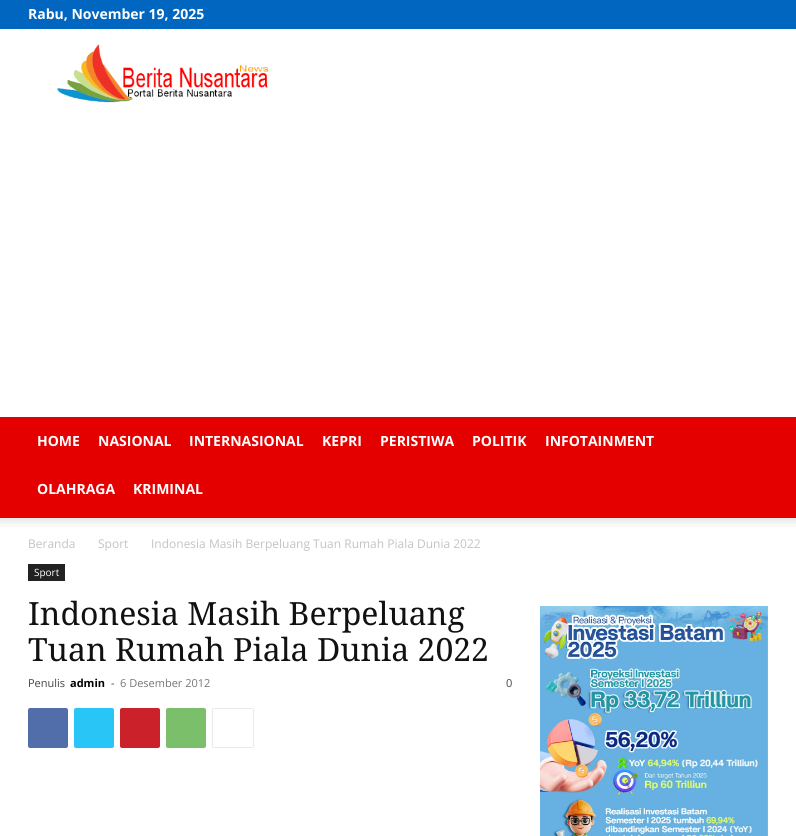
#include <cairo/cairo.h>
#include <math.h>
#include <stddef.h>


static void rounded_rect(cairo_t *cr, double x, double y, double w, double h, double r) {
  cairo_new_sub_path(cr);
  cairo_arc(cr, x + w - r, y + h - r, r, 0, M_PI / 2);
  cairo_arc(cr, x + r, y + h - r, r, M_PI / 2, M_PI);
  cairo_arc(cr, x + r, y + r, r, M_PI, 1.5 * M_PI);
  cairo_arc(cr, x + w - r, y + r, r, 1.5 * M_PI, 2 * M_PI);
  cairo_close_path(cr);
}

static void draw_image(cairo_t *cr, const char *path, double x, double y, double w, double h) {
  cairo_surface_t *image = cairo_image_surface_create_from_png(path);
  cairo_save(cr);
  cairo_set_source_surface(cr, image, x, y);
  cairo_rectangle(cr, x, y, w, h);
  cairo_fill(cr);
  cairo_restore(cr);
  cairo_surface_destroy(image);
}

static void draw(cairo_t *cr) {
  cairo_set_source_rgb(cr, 1, 1, 1);
  cairo_paint(cr);
  cairo_set_source_rgb(cr, 0, 102 / 255.0, 191 / 255.0);
  cairo_rectangle(cr, 0, 0, 796, 29);
  cairo_fill(cr);
  draw_image(cr, "images/1.png", 56, 44, 213, 59);
  cairo_set_source_rgb(cr, 229 / 255.0, 0, 0);
  cairo_rectangle(cr, 0, 417, 796, 101);
  cairo_fill(cr);
  draw_image(cr, "images/2.png", 0, 518, 796, 9);
  cairo_set_source_rgb(cr, 34 / 255.0, 34 / 255.0, 34 / 255.0);
  cairo_rectangle(cr, 28, 564, 37, 17);
  cairo_fill(cr);
  cairo_set_source_rgb(cr, 81 / 255.0, 110 / 255.0, 171 / 255.0);
  rounded_rect(cr, 28, 708, 40, 40, 2);
  cairo_fill(cr);
  cairo_set_source_rgb(cr, 41 / 255.0, 197 / 255.0, 246 / 255.0);
  rounded_rect(cr, 74, 708, 40, 40, 2);
  cairo_fill(cr);
  cairo_set_source_rgb(cr, 202 / 255.0, 33 / 255.0, 42 / 255.0);
  rounded_rect(cr, 120, 708, 40, 40, 2);
  cairo_fill(cr);
  cairo_set_source_rgb(cr, 123 / 255.0, 191 / 255.0, 106 / 255.0);
  rounded_rect(cr, 166, 708, 40, 40, 2);
  cairo_fill(cr);
  rounded_rect(cr, 212.5, 708.5, 41, 39, 1.5);
  cairo_set_source_rgb(cr, 233 / 255.0, 233 / 255.0, 233 / 255.0);
  cairo_set_line_width(cr, 1);
  cairo_stroke(cr);
  draw_image(cr, "images/3.png", 540, 606, 228, 230);
  cairo_select_font_face(cr, "Open Sans", CAIRO_FONT_SLANT_NORMAL, CAIRO_FONT_WEIGHT_BOLD);
  cairo_set_font_size(cr, 14);
  cairo_set_source_rgb(cr, 1, 1, 1);
  cairo_move_to(cr, 28, 19);
  cairo_show_text(cr, "Rabu, November 19, 2025");
  cairo_move_to(cr, 37, 446);
  cairo_show_text(cr, "HOME");
  cairo_move_to(cr, 98, 446);
  cairo_show_text(cr, "NASIONAL");
  cairo_move_to(cr, 189, 446);
  cairo_show_text(cr, "INTERNASIONAL");
  cairo_move_to(cr, 322, 446);
  cairo_show_text(cr, "KEPRI");
  cairo_move_to(cr, 380, 446);
  cairo_show_text(cr, "PERISTIWA");
  cairo_move_to(cr, 472, 446);
  cairo_show_text(cr, "POLITIK");
  cairo_move_to(cr, 545, 446);
  cairo_show_text(cr, "INFOTAINMENT");
  cairo_move_to(cr, 37, 494);
  cairo_show_text(cr, "OLAHRAGA");
  cairo_move_to(cr, 133, 494);
  cairo_show_text(cr, "KRIMINAL");
  cairo_select_font_face(cr, "Open Sans", CAIRO_FONT_SLANT_NORMAL, CAIRO_FONT_WEIGHT_NORMAL);
  cairo_set_font_size(cr, 12);
  cairo_set_source_rgb(cr, 195 / 255.0, 195 / 255.0, 195 / 255.0);
  cairo_move_to(cr, 28, 548);
  cairo_show_text(cr, "Beranda");
  cairo_move_to(cr, 98, 548);
  cairo_show_text(cr, "Sport");
  cairo_move_to(cr, 151, 548);
  cairo_show_text(cr, "Indonesia Masih Berpeluang Tuan Rumah Piala Dunia 2022");
  cairo_set_font_size(cr, 10);
  cairo_set_source_rgb(cr, 1, 1, 1);
  cairo_move_to(cr, 34, 576);
  cairo_show_text(cr, "Sport");
  cairo_select_font_face(cr, "Droid Serif", CAIRO_FONT_SLANT_NORMAL, CAIRO_FONT_WEIGHT_NORMAL);
  cairo_set_font_size(cr, 32);
  cairo_set_source_rgb(cr, 17 / 255.0, 17 / 255.0, 17 / 255.0);
  cairo_move_to(cr, 28, 625);
  cairo_show_text(cr, "Indonesia Masih Berpeluang");
  cairo_move_to(cr, 28, 661);
  cairo_show_text(cr, "Tuan Rumah Piala Dunia 2022");
  cairo_select_font_face(cr, "Open Sans", CAIRO_FONT_SLANT_NORMAL, CAIRO_FONT_WEIGHT_NORMAL);
  cairo_set_font_size(cr, 11);
  cairo_set_source_rgb(cr, 68 / 255.0, 68 / 255.0, 68 / 255.0);
  cairo_move_to(cr, 28, 687);
  cairo_show_text(cr, "Penulis");
  cairo_select_font_face(cr, "Open Sans", CAIRO_FONT_SLANT_NORMAL, CAIRO_FONT_WEIGHT_BOLD);
  cairo_set_source_rgb(cr, 0, 0, 0);
  cairo_move_to(cr, 70, 687);
  cairo_show_text(cr, "admin");
  cairo_select_font_face(cr, "Open Sans", CAIRO_FONT_SLANT_NORMAL, CAIRO_FONT_WEIGHT_NORMAL);
  cairo_set_source_rgb(cr, 68 / 255.0, 68 / 255.0, 68 / 255.0);
  cairo_move_to(cr, 111, 687);
  cairo_show_text(cr, "-");
  cairo_set_source_rgb(cr, 118 / 255.0, 118 / 255.0, 118 / 255.0);
  cairo_move_to(cr, 120, 687);
  cairo_show_text(cr, "6 Desember 2012");
  cairo_set_source_rgb(cr, 68 / 255.0, 68 / 255.0, 68 / 255.0);
  cairo_move_to(cr, 506, 687);
  cairo_show_text(cr, "0");
}

int main(void) {
  cairo_surface_t *surface = cairo_image_surface_create(CAIRO_FORMAT_RGB24, 796, 836);
  cairo_t *cr = cairo_create(surface);
  cairo_font_options_t *options = cairo_font_options_create();
  cairo_font_options_set_hint_metrics(options, CAIRO_HINT_METRICS_OFF);
  cairo_font_options_set_hint_style(options, CAIRO_HINT_STYLE_NONE);
  cairo_set_font_options(cr, options);
  cairo_set_miter_limit(cr, 4);
  draw(cr);
  cairo_surface_write_to_png(surface, "out.png");
  cairo_font_options_destroy(options);
  cairo_destroy(cr);
  cairo_surface_destroy(surface);
  return 0;
}
